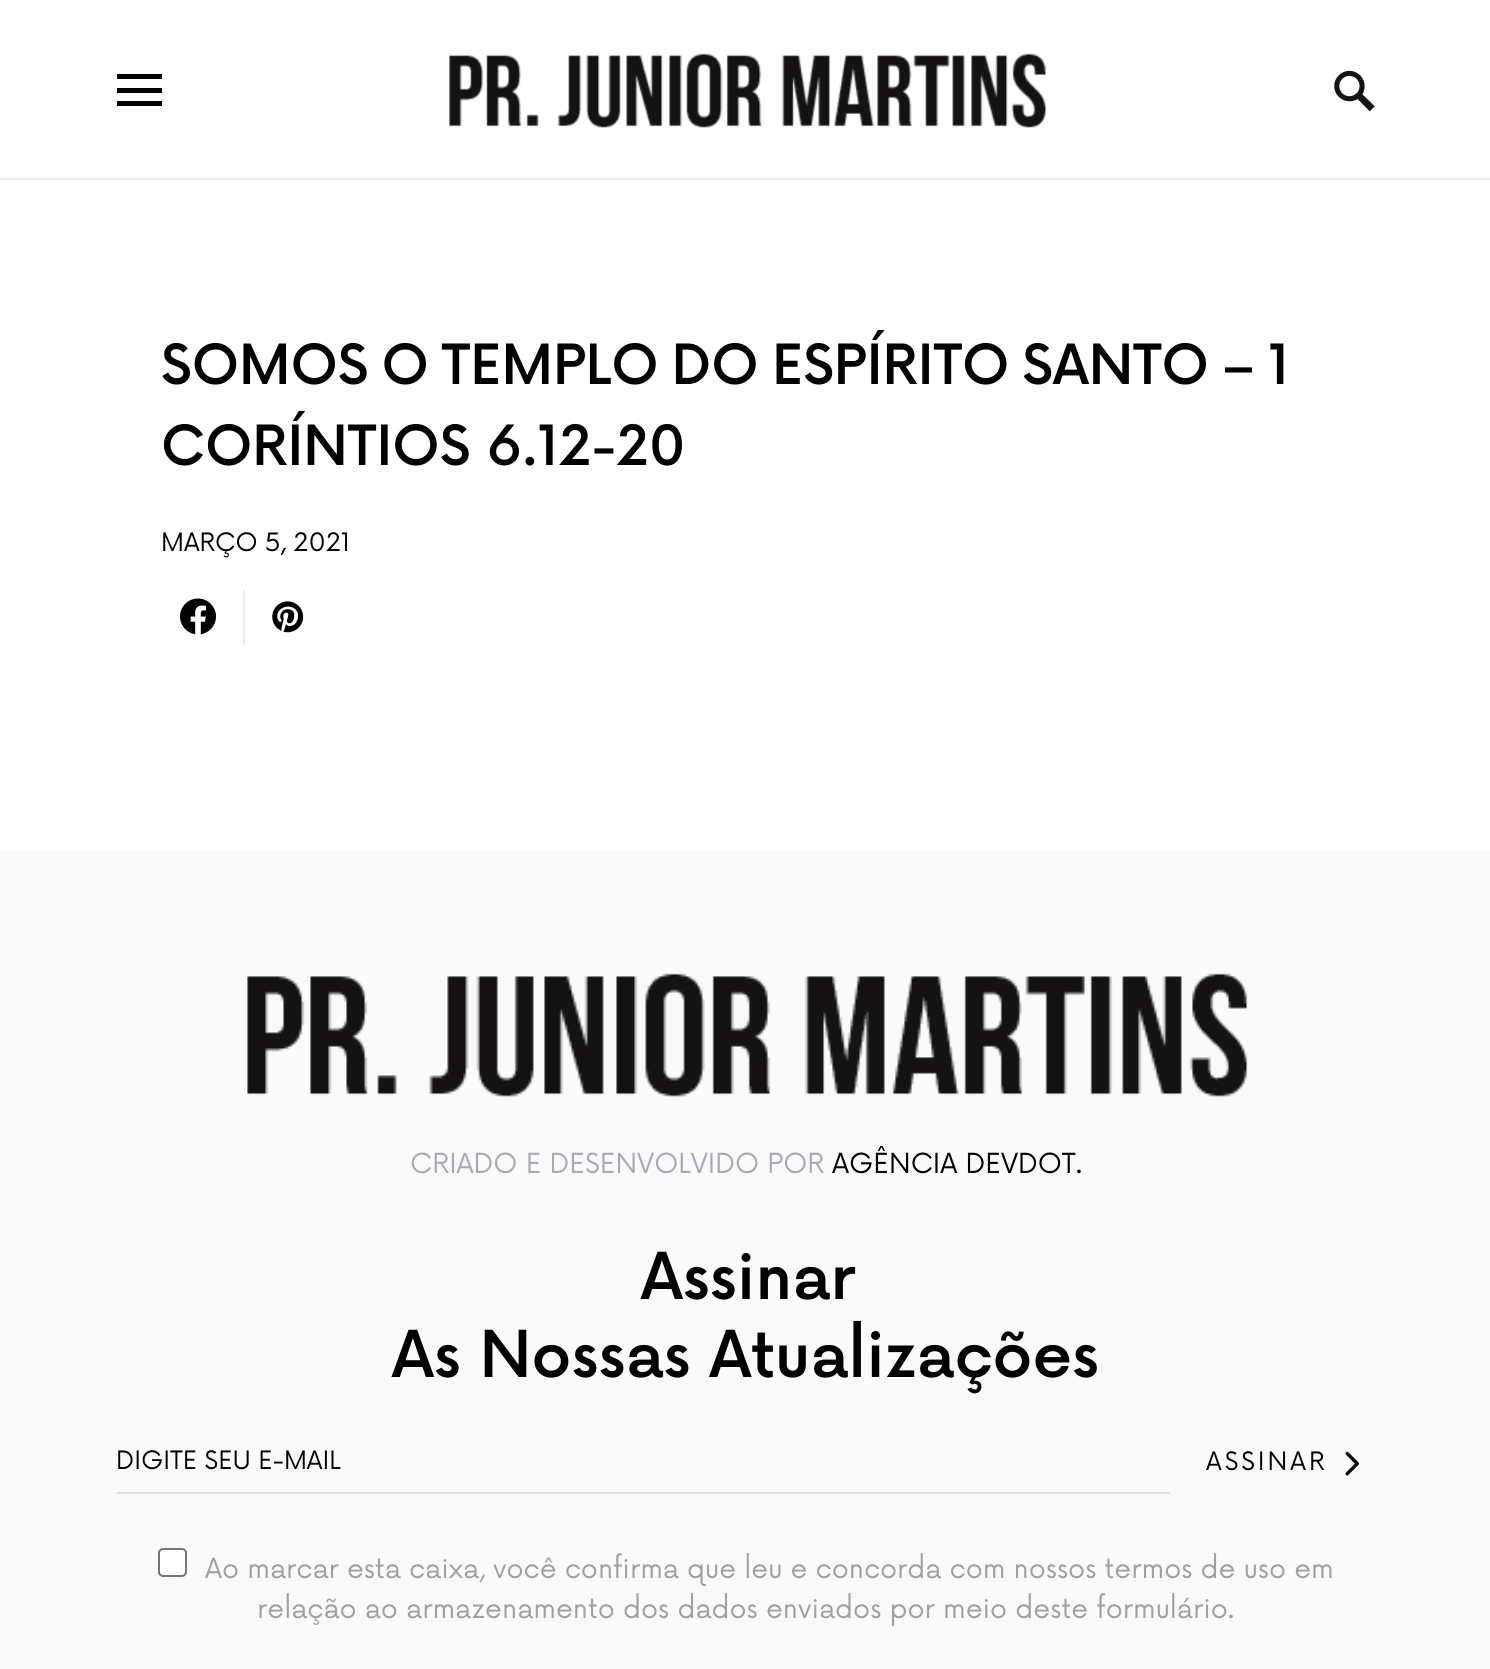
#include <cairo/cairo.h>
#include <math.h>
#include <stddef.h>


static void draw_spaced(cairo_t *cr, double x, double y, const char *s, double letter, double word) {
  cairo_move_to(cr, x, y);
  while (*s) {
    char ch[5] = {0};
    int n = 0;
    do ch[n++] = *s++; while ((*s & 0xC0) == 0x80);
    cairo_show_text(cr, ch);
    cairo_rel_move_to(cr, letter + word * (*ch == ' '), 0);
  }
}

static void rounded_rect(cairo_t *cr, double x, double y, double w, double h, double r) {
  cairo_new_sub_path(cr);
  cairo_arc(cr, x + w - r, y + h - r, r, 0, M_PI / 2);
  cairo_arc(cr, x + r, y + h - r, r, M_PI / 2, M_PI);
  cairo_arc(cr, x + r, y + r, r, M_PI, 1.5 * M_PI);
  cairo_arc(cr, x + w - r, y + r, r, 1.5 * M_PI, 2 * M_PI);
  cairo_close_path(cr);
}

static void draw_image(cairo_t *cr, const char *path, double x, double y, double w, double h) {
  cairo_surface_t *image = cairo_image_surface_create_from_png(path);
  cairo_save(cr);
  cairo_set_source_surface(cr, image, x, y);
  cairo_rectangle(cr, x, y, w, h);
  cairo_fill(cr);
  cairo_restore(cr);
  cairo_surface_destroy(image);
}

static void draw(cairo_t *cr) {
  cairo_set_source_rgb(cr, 1, 1, 1);
  cairo_paint(cr);
  cairo_set_source_rgb(cr, 233 / 255.0, 236 / 255.0, 239 / 255.0);
  cairo_rectangle(cr, 0, 178, 1490, 2);
  cairo_fill(cr);
  cairo_set_source_rgb(cr, 0, 0, 0);
  cairo_rectangle(cr, 117, 74, 45, 5);
  cairo_fill(cr);
  cairo_rectangle(cr, 117, 88, 45, 5);
  cairo_fill(cr);
  cairo_rectangle(cr, 117, 101, 45, 5);
  cairo_fill(cr);
  draw_image(cr, "images/1.png", 449, 53, 598, 75);
  draw_image(cr, "images/2.png", 1334, 70, 41, 42);
  cairo_set_source_rgb(cr, 233 / 255.0, 236 / 255.0, 239 / 255.0);
  cairo_rectangle(cr, 243, 590, 2, 54);
  cairo_fill(cr);
  draw_image(cr, "images/3.png", 180, 598, 36, 37);
  draw_image(cr, "images/4.png", 272, 601, 32, 32);
  cairo_set_source_rgb(cr, 250 / 255.0, 250 / 255.0, 250 / 255.0);
  cairo_rectangle(cr, 0, 851, 1490, 818);
  cairo_fill(cr);
  draw_image(cr, "images/5.png", 247, 973, 1001, 124);
  cairo_set_source_rgb(cr, 222 / 255.0, 226 / 255.0, 230 / 255.0);
  cairo_rectangle(cr, 117, 1492, 1053, 2);
  cairo_fill(cr);
  draw_image(cr, "images/6.png", 1345, 1451, 14, 25);
  cairo_set_source_rgb(cr, 1, 1, 1);
  rounded_rect(cr, 159, 1549, 27, 27, 4);
  cairo_fill_preserve(cr);
  cairo_set_source_rgb(cr, 118 / 255.0, 118 / 255.0, 118 / 255.0);
  cairo_stroke(cr);
  cairo_select_font_face(cr, "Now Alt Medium", CAIRO_FONT_SLANT_NORMAL, CAIRO_FONT_WEIGHT_NORMAL);
  cairo_set_font_size(cr, 54);
  cairo_set_source_rgb(cr, 0, 0, 0);
  draw_spaced(cr, 161, 384, "SOMOS O TEMPLO DO ESPÍRITO SANTO – 1", 0, -3.25);
  cairo_move_to(cr, 161, 465);
  cairo_show_text(cr, "CORÍNTIOS 6.12-20");
  cairo_select_font_face(cr, "Now Alt", CAIRO_FONT_SLANT_NORMAL, CAIRO_FONT_WEIGHT_NORMAL);
  cairo_set_font_size(cr, 24.75);
  cairo_move_to(cr, 161, 551);
  cairo_show_text(cr, "MARÇO 5, 2021");
  cairo_set_font_size(cr, 27);
  cairo_set_source_rgb(cr, 168 / 255.0, 170 / 255.0, 178 / 255.0);
  cairo_move_to(cr, 410, 1173);
  cairo_show_text(cr, "CRIADO E DESENVOLVIDO POR");
  cairo_set_source_rgb(cr, 0, 0, 0);
  cairo_move_to(cr, 832, 1173);
  cairo_show_text(cr, "AGÊNCIA DEVDOT.");
  cairo_select_font_face(cr, "Now Alt Medium", CAIRO_FONT_SLANT_NORMAL, CAIRO_FONT_WEIGHT_NORMAL);
  cairo_set_font_size(cr, 63);
  cairo_move_to(cr, 641, 1299);
  cairo_show_text(cr, "Assinar");
  cairo_move_to(cr, 392, 1377);
  cairo_show_text(cr, "As Nossas Atualizações");
  cairo_select_font_face(cr, "Now Alt", CAIRO_FONT_SLANT_NORMAL, CAIRO_FONT_WEIGHT_NORMAL);
  cairo_set_font_size(cr, 24.75);
  cairo_move_to(cr, 116, 1469);
  cairo_show_text(cr, "DIGITE SEU E-MAIL");
  draw_spaced(cr, 1206, 1470, "ASSINAR", 3, 0);
  cairo_set_font_size(cr, 27);
  cairo_set_source_rgb(cr, 160 / 255.0, 160 / 255.0, 160 / 255.0);
  cairo_move_to(cr, 205, 1578);
  cairo_show_text(cr, "Ao marcar esta caixa, você confirma que leu e concorda com nossos termos de uso em");
  cairo_move_to(cr, 257, 1618);
  cairo_show_text(cr, "relação ao armazenamento dos dados enviados por meio deste formulário.");
}

int main(void) {
  cairo_surface_t *surface = cairo_image_surface_create(CAIRO_FORMAT_RGB24, 1490, 1669);
  cairo_t *cr = cairo_create(surface);
  cairo_font_options_t *options = cairo_font_options_create();
  cairo_font_options_set_hint_metrics(options, CAIRO_HINT_METRICS_OFF);
  cairo_font_options_set_hint_style(options, CAIRO_HINT_STYLE_NONE);
  cairo_set_font_options(cr, options);
  cairo_set_miter_limit(cr, 4);
  draw(cr);
  cairo_surface_write_to_png(surface, "out.png");
  cairo_font_options_destroy(options);
  cairo_destroy(cr);
  cairo_surface_destroy(surface);
  return 0;
}
